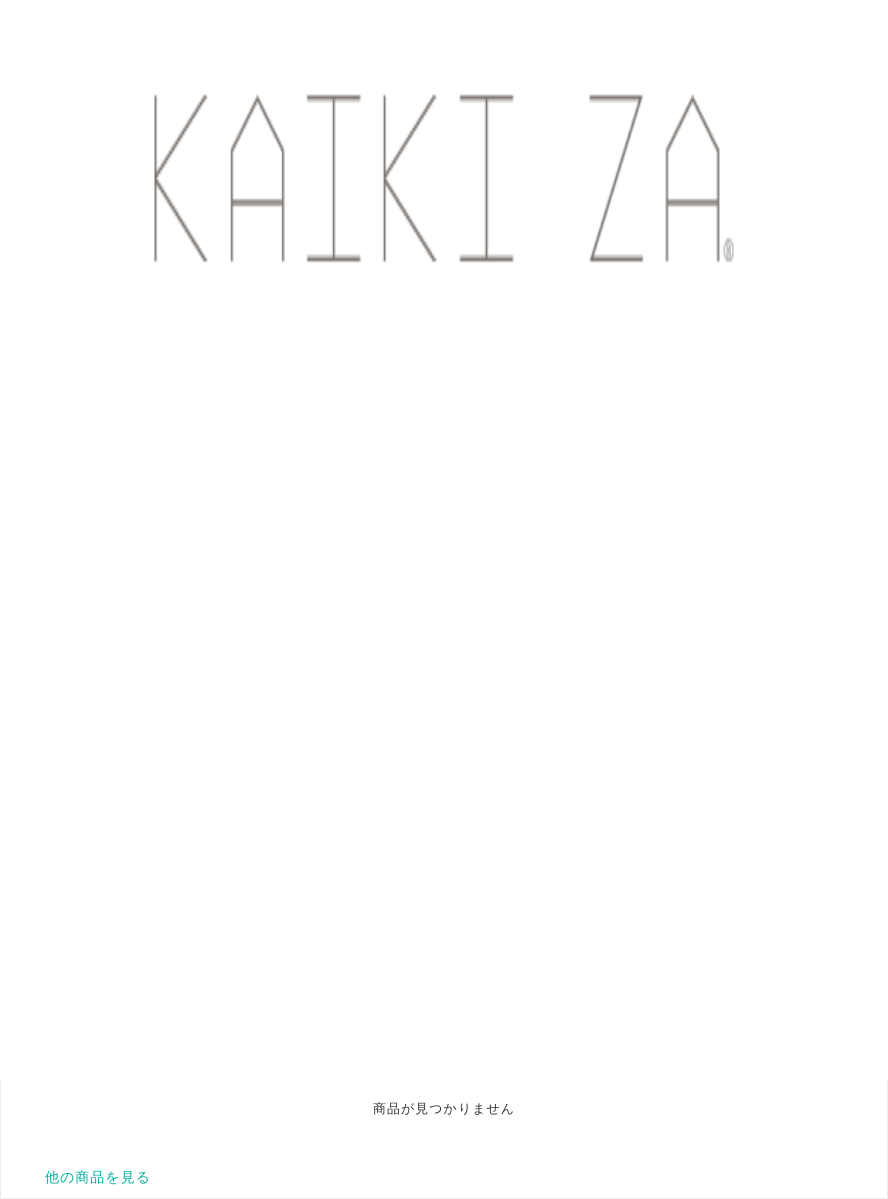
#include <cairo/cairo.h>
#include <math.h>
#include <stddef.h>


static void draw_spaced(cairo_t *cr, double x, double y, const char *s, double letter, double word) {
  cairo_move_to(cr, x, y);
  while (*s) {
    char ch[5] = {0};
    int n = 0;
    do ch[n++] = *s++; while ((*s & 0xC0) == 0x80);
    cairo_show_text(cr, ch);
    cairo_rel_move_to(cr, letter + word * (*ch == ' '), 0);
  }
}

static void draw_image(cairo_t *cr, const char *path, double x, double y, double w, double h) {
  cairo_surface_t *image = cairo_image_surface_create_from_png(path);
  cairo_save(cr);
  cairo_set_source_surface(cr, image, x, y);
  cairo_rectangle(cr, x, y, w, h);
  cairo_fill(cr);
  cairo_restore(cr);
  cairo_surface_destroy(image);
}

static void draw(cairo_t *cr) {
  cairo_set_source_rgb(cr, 1, 1, 1);
  cairo_paint(cr);
  draw_image(cr, "images/1.png", 154, 94, 580, 169);
  cairo_set_source_rgb(cr, 236 / 255.0, 236 / 255.0, 236 / 255.0);
  cairo_rectangle(cr, 887, 1079, 1, 120);
  cairo_fill(cr);
  cairo_rectangle(cr, 0, 1198, 888, 1);
  cairo_fill(cr);
  cairo_rectangle(cr, 0, 1079, 1, 120);
  cairo_fill(cr);
  cairo_select_font_face(cr, "WenQuanYi Zen Hei Medium", CAIRO_FONT_SLANT_NORMAL, CAIRO_FONT_WEIGHT_NORMAL);
  cairo_set_font_size(cr, 13);
  cairo_set_source_rgb(cr, 51 / 255.0, 51 / 255.0, 51 / 255.0);
  draw_spaced(cr, 373, 1113, "商品が見つかりません", 1, 0);
  cairo_set_font_size(cr, 14);
  cairo_set_source_rgb(cr, 0, 174 / 255.0, 159 / 255.0);
  draw_spaced(cr, 45, 1182, "他の商品を見る", 1, 0);
}

int main(void) {
  cairo_surface_t *surface = cairo_image_surface_create(CAIRO_FORMAT_RGB24, 888, 1199);
  cairo_t *cr = cairo_create(surface);
  cairo_font_options_t *options = cairo_font_options_create();
  cairo_font_options_set_hint_metrics(options, CAIRO_HINT_METRICS_OFF);
  cairo_font_options_set_hint_style(options, CAIRO_HINT_STYLE_NONE);
  cairo_set_font_options(cr, options);
  cairo_set_miter_limit(cr, 4);
  draw(cr);
  cairo_surface_write_to_png(surface, "out.png");
  cairo_font_options_destroy(options);
  cairo_destroy(cr);
  cairo_surface_destroy(surface);
  return 0;
}
